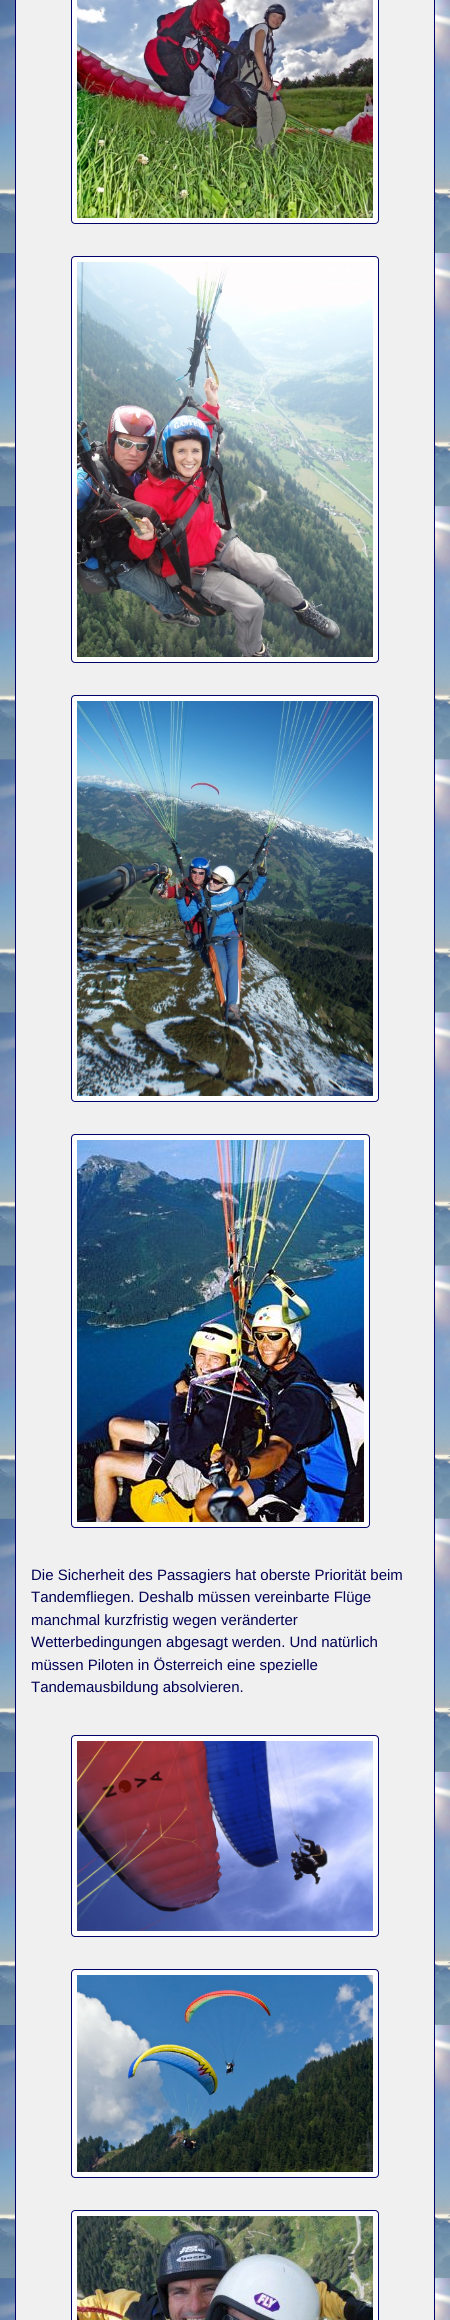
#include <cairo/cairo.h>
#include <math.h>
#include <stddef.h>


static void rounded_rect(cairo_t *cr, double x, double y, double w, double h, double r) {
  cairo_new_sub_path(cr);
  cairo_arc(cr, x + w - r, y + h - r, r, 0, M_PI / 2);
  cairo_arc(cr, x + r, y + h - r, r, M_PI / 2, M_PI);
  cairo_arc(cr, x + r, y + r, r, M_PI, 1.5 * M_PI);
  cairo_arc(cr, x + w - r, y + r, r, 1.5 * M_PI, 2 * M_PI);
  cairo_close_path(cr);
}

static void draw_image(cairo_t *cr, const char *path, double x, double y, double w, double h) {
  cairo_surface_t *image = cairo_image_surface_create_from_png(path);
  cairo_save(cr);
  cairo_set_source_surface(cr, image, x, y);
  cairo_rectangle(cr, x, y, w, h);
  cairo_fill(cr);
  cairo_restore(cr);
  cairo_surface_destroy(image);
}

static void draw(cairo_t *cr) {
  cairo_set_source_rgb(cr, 1, 1, 1);
  cairo_paint(cr);
  draw_image(cr, "images/1.png", 0, 0, 450, 2320);
  cairo_set_source_rgb(cr, 240 / 255.0, 240 / 255.0, 240 / 255.0);
  cairo_rectangle(cr, 16, 0, 418, 2320);
  cairo_fill(cr);
  cairo_set_source_rgb(cr, 0, 0, 107 / 255.0);
  cairo_rectangle(cr, 434, 0, 1, 2320);
  cairo_fill(cr);
  cairo_rectangle(cr, 15, 0, 1, 2320);
  cairo_fill(cr);
  cairo_set_source_rgb(cr, 1, 1, 1);
  rounded_rect(cr, 71.5, -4.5, 307, 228, 3.5);
  cairo_fill_preserve(cr);
  cairo_set_source_rgb(cr, 0, 0, 107 / 255.0);
  cairo_set_line_width(cr, 1);
  cairo_stroke(cr);
  draw_image(cr, "images/2.png", 77, 0, 296, 218);
  cairo_set_source_rgb(cr, 1, 1, 1);
  rounded_rect(cr, 71.5, 256.5, 307, 406, 3.5);
  cairo_fill_preserve(cr);
  cairo_set_source_rgb(cr, 0, 0, 107 / 255.0);
  cairo_stroke(cr);
  draw_image(cr, "images/3.png", 77, 262, 296, 395);
  cairo_set_source_rgb(cr, 1, 1, 1);
  rounded_rect(cr, 71.5, 695.5, 307, 406, 3.5);
  cairo_fill_preserve(cr);
  cairo_set_source_rgb(cr, 0, 0, 107 / 255.0);
  cairo_stroke(cr);
  draw_image(cr, "images/4.png", 77, 701, 296, 395);
  cairo_set_source_rgb(cr, 1, 1, 1);
  rounded_rect(cr, 71.5, 1134.5, 298, 393, 3.5);
  cairo_fill_preserve(cr);
  cairo_set_source_rgb(cr, 0, 0, 107 / 255.0);
  cairo_stroke(cr);
  draw_image(cr, "images/5.png", 77, 1140, 287, 382);
  cairo_set_source_rgb(cr, 1, 1, 1);
  rounded_rect(cr, 71.5, 1735.5, 307, 201, 3.5);
  cairo_fill_preserve(cr);
  cairo_set_source_rgb(cr, 0, 0, 107 / 255.0);
  cairo_stroke(cr);
  draw_image(cr, "images/6.png", 77, 1741, 296, 190);
  cairo_set_source_rgb(cr, 1, 1, 1);
  rounded_rect(cr, 71.5, 1969.5, 307, 208, 3.5);
  cairo_fill_preserve(cr);
  cairo_set_source_rgb(cr, 0, 0, 107 / 255.0);
  cairo_stroke(cr);
  draw_image(cr, "images/7.png", 77, 1975, 296, 197);
  cairo_set_source_rgb(cr, 1, 1, 1);
  rounded_rect(cr, 71.5, 2210.5, 307, 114, 3.5);
  cairo_fill_preserve(cr);
  cairo_set_source_rgb(cr, 0, 0, 107 / 255.0);
  cairo_stroke(cr);
  draw_image(cr, "images/8.png", 77, 2216, 296, 104);
  cairo_select_font_face(cr, "Liberation Sans", CAIRO_FONT_SLANT_NORMAL, CAIRO_FONT_WEIGHT_NORMAL);
  cairo_set_font_size(cr, 15);
  cairo_set_source_rgb(cr, 0, 0, 83 / 255.0);
  cairo_move_to(cr, 31, 1580);
  cairo_show_text(cr, "Die Sicherheit des Passagiers hat oberste Priorität beim");
  cairo_move_to(cr, 31, 1602);
  cairo_show_text(cr, "Tandemfliegen. Deshalb müssen vereinbarte Flüge");
  cairo_move_to(cr, 31, 1625);
  cairo_show_text(cr, "manchmal kurzfristig wegen veränderter");
  cairo_move_to(cr, 31, 1647);
  cairo_show_text(cr, "Wetterbedingungen abgesagt werden. Und natürlich");
  cairo_move_to(cr, 31, 1670);
  cairo_show_text(cr, "müssen Piloten in Österreich eine spezielle");
  cairo_move_to(cr, 31, 1692);
  cairo_show_text(cr, "Tandemausbildung absolvieren.");
}

int main(void) {
  cairo_surface_t *surface = cairo_image_surface_create(CAIRO_FORMAT_RGB24, 450, 2320);
  cairo_t *cr = cairo_create(surface);
  cairo_font_options_t *options = cairo_font_options_create();
  cairo_font_options_set_hint_metrics(options, CAIRO_HINT_METRICS_OFF);
  cairo_font_options_set_hint_style(options, CAIRO_HINT_STYLE_NONE);
  cairo_set_font_options(cr, options);
  cairo_set_miter_limit(cr, 4);
  draw(cr);
  cairo_surface_write_to_png(surface, "out.png");
  cairo_font_options_destroy(options);
  cairo_destroy(cr);
  cairo_surface_destroy(surface);
  return 0;
}
